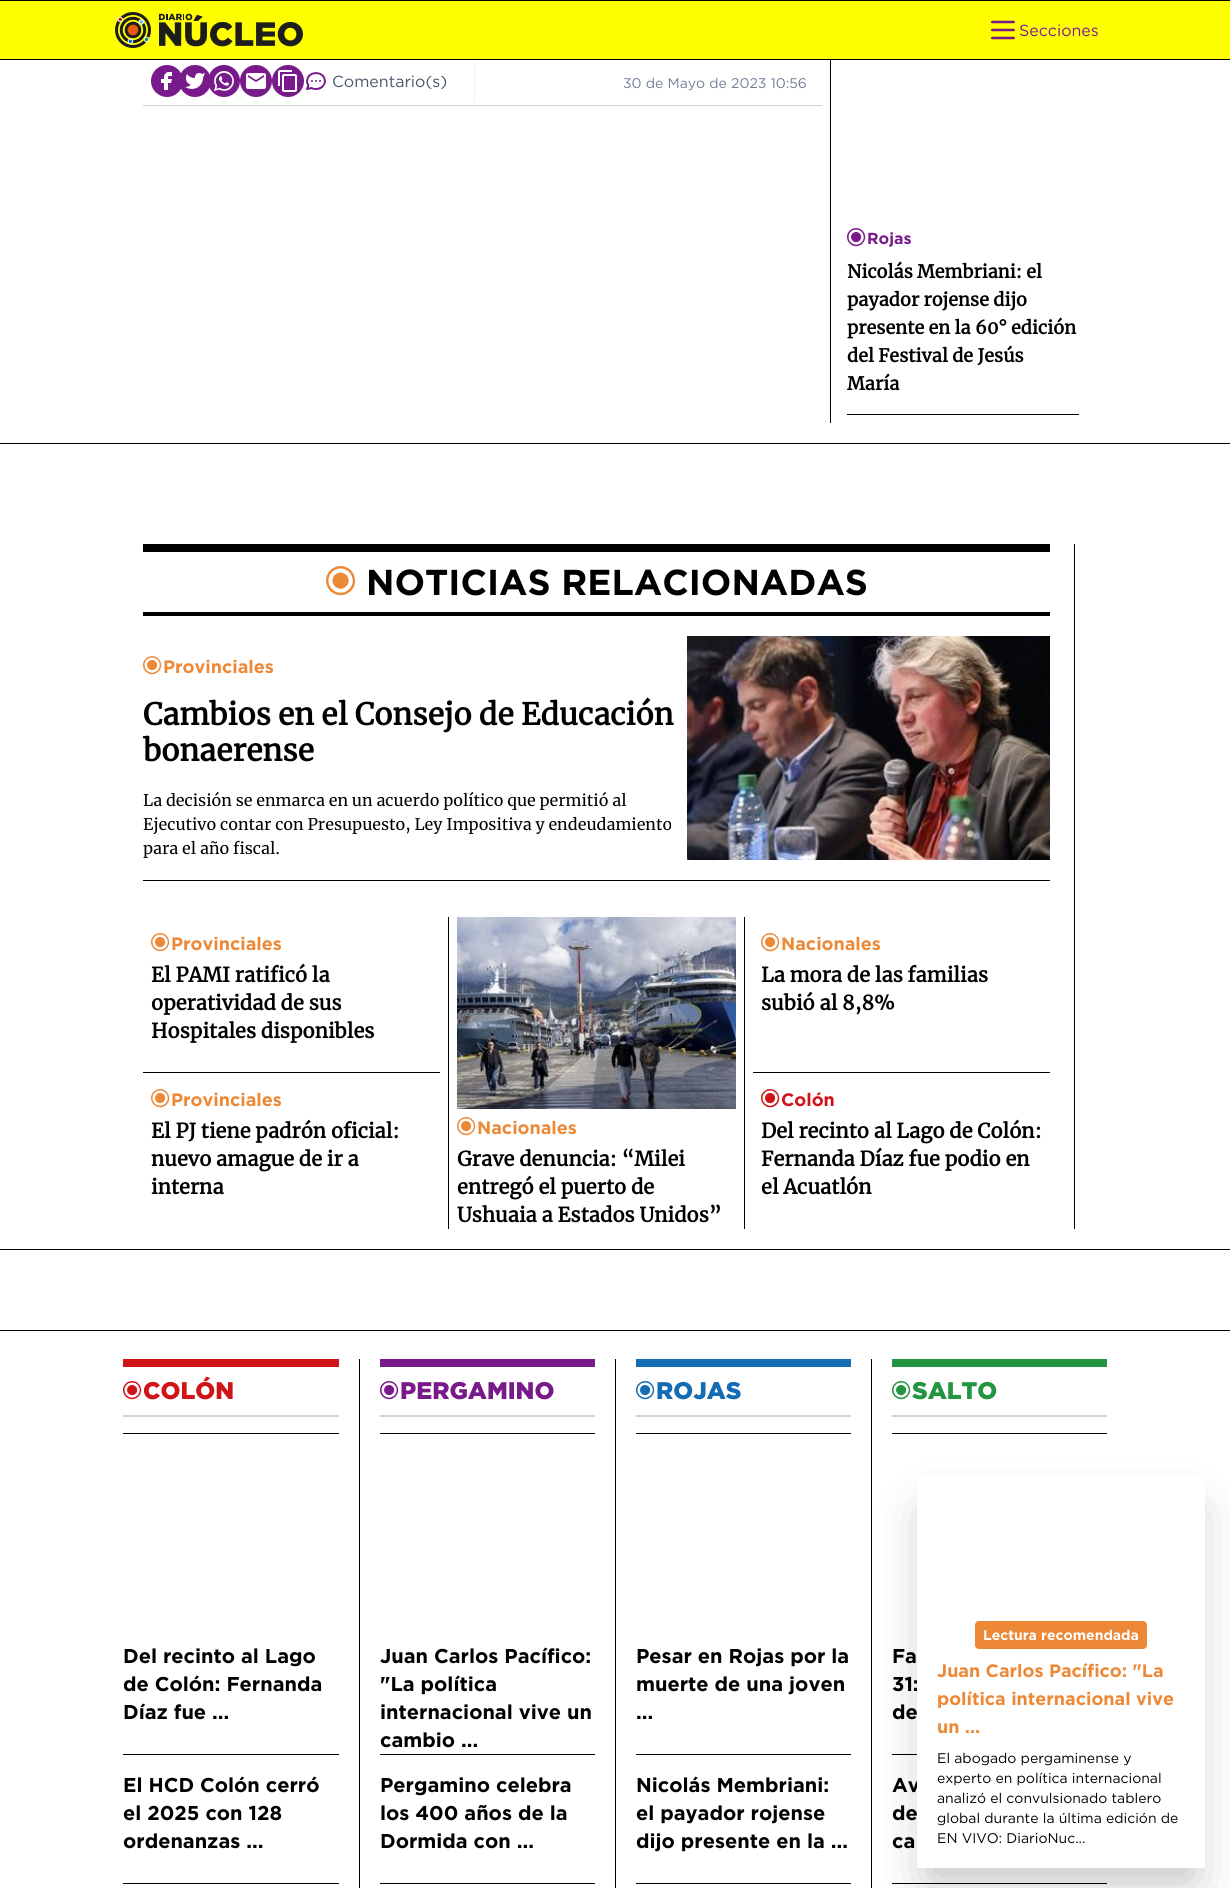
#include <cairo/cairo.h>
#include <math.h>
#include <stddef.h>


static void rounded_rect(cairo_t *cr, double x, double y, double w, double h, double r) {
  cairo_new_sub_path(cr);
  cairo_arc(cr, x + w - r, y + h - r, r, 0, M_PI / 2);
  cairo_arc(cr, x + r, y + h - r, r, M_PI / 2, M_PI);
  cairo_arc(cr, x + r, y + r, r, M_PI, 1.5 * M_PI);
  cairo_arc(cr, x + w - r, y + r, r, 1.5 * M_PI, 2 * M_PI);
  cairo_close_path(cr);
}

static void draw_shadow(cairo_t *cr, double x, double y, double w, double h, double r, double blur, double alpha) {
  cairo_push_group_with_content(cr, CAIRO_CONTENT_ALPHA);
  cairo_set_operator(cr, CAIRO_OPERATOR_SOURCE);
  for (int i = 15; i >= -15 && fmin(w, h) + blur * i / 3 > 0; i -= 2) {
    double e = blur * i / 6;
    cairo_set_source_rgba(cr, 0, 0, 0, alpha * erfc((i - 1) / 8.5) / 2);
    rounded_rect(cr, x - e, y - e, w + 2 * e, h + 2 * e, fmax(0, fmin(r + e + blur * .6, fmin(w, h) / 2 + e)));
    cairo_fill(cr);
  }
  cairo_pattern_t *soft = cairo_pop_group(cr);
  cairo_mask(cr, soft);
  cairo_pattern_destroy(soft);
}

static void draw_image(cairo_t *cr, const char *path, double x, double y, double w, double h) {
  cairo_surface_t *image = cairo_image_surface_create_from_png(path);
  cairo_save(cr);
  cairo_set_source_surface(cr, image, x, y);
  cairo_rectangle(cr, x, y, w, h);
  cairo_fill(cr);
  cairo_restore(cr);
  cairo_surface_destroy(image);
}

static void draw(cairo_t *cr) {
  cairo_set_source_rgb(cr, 1, 1, 1);
  cairo_paint(cr);
  cairo_set_source_rgb(cr, 1, 1, 0);
  cairo_rectangle(cr, 0, 1, 1230, 58);
  cairo_fill(cr);
  cairo_set_source_rgb(cr, 0, 0, 0);
  cairo_rectangle(cr, 0, 0, 1230, 1);
  cairo_fill(cr);
  cairo_rectangle(cr, 0, 59, 1230, 1);
  cairo_fill(cr);
  draw_image(cr, "images/1.png", 115, 12, 36, 36);
  draw_image(cr, "images/2.png", 159, 13, 144, 34);
  draw_image(cr, "images/3.png", 991, 20, 24, 20);
  cairo_set_source_rgb(cr, 203 / 255.0, 213 / 255.0, 224 / 255.0);
  cairo_rectangle(cr, 143, 105, 679, 1);
  cairo_fill(cr);
  cairo_set_source_rgb(cr, 237 / 255.0, 242 / 255.0, 247 / 255.0);
  cairo_rectangle(cr, 474, 61, 1, 40);
  cairo_fill(cr);
  cairo_set_source_rgb(cr, 120 / 255.0, 26 / 255.0, 138 / 255.0);
  cairo_arc(cr, 167, 81, 16, 0, 2 * M_PI);
  cairo_fill(cr);
  draw_image(cr, "images/4.png", 161, 72, 11, 18);
  cairo_arc(cr, 195, 81, 16, 0, 2 * M_PI);
  cairo_fill(cr);
  draw_image(cr, "images/5.png", 185, 73, 20, 16);
  cairo_arc(cr, 224, 81, 16, 0, 2 * M_PI);
  cairo_fill(cr);
  draw_image(cr, "images/6.png", 214, 71, 20, 20);
  cairo_arc(cr, 256, 81, 16, 0, 2 * M_PI);
  cairo_fill(cr);
  draw_image(cr, "images/7.png", 246, 73, 20, 16);
  cairo_arc(cr, 288, 81, 16, 0, 2 * M_PI);
  cairo_fill(cr);
  draw_image(cr, "images/8.png", 278, 70, 19, 22);
  draw_image(cr, "images/9.png", 306, 72, 20, 18);
  cairo_set_source_rgb(cr, 0, 0, 0);
  cairo_rectangle(cr, 830, 60, 1, 363);
  cairo_fill(cr);
  cairo_rectangle(cr, 847, 414, 232, 1);
  cairo_fill(cr);
  draw_image(cr, "images/10.png", 847, 228, 19, 19);
  cairo_rectangle(cr, 0, 443, 1230, 1);
  cairo_fill(cr);
  cairo_rectangle(cr, 143, 544, 907, 8);
  cairo_fill(cr);
  cairo_rectangle(cr, 143, 612, 907, 4);
  cairo_fill(cr);
  draw_image(cr, "images/11.png", 326, 566, 30, 30);
  cairo_rectangle(cr, 143, 880, 907, 1);
  cairo_fill(cr);
  draw_image(cr, "images/12.png", 143, 656, 19, 19);
  draw_image(cr, "images/13.png", 687, 636, 363, 224);
  cairo_rectangle(cr, 143, 1072, 297, 1);
  cairo_fill(cr);
  draw_image(cr, "images/12.png", 151, 933, 19, 19);
  cairo_rectangle(cr, 753, 1072, 297, 1);
  cairo_fill(cr);
  draw_image(cr, "images/14.png", 761, 933, 19, 19);
  draw_image(cr, "images/15.png", 151, 1089, 19, 19);
  cairo_rectangle(cr, 744, 917, 1, 312);
  cairo_fill(cr);
  cairo_rectangle(cr, 448, 917, 1, 312);
  cairo_fill(cr);
  draw_image(cr, "images/16.png", 457, 917, 279, 192);
  draw_image(cr, "images/12.png", 457, 1117, 19, 19);
  draw_image(cr, "images/17.png", 761, 1089, 19, 19);
  cairo_rectangle(cr, 1074, 544, 1, 685);
  cairo_fill(cr);
  cairo_rectangle(cr, 0, 1330, 1230, 1);
  cairo_fill(cr);
  cairo_set_source_rgb(cr, 203 / 255.0, 213 / 255.0, 224 / 255.0);
  cairo_rectangle(cr, 123, 1415, 216, 2);
  cairo_fill(cr);
  cairo_set_source_rgb(cr, 208 / 255.0, 19 / 255.0, 23 / 255.0);
  cairo_rectangle(cr, 123, 1359, 216, 8);
  cairo_fill(cr);
  draw_image(cr, "images/18.png", 123, 1381, 19, 19);
  cairo_set_source_rgb(cr, 0, 0, 0);
  cairo_rectangle(cr, 123, 1433, 216, 1);
  cairo_fill(cr);
  cairo_rectangle(cr, 123, 1754, 216, 1);
  cairo_fill(cr);
  cairo_rectangle(cr, 123, 1883, 216, 1);
  cairo_fill(cr);
  cairo_rectangle(cr, 359, 1359, 1, 529);
  cairo_fill(cr);
  cairo_set_source_rgb(cr, 203 / 255.0, 213 / 255.0, 224 / 255.0);
  cairo_rectangle(cr, 380, 1415, 215, 2);
  cairo_fill(cr);
  cairo_set_source_rgb(cr, 120 / 255.0, 26 / 255.0, 138 / 255.0);
  cairo_rectangle(cr, 380, 1359, 215, 8);
  cairo_fill(cr);
  draw_image(cr, "images/10.png", 380, 1381, 19, 19);
  cairo_set_source_rgb(cr, 0, 0, 0);
  cairo_rectangle(cr, 380, 1433, 215, 1);
  cairo_fill(cr);
  cairo_rectangle(cr, 380, 1754, 215, 1);
  cairo_fill(cr);
  cairo_rectangle(cr, 380, 1883, 215, 1);
  cairo_fill(cr);
  cairo_rectangle(cr, 615, 1359, 1, 529);
  cairo_fill(cr);
  cairo_set_source_rgb(cr, 203 / 255.0, 213 / 255.0, 224 / 255.0);
  cairo_rectangle(cr, 636, 1415, 215, 2);
  cairo_fill(cr);
  cairo_set_source_rgb(cr, 19 / 255.0, 108 / 255.0, 180 / 255.0);
  cairo_rectangle(cr, 636, 1359, 215, 8);
  cairo_fill(cr);
  draw_image(cr, "images/19.png", 636, 1381, 19, 19);
  cairo_set_source_rgb(cr, 0, 0, 0);
  cairo_rectangle(cr, 636, 1433, 215, 1);
  cairo_fill(cr);
  cairo_rectangle(cr, 636, 1754, 215, 1);
  cairo_fill(cr);
  cairo_rectangle(cr, 636, 1883, 215, 1);
  cairo_fill(cr);
  cairo_rectangle(cr, 871, 1359, 1, 529);
  cairo_fill(cr);
  cairo_set_source_rgb(cr, 203 / 255.0, 213 / 255.0, 224 / 255.0);
  cairo_rectangle(cr, 892, 1415, 215, 2);
  cairo_fill(cr);
  cairo_set_source_rgb(cr, 33 / 255.0, 149 / 255.0, 64 / 255.0);
  cairo_rectangle(cr, 892, 1359, 215, 8);
  cairo_fill(cr);
  draw_image(cr, "images/20.png", 892, 1381, 19, 19);
  cairo_set_source_rgb(cr, 0, 0, 0);
  cairo_rectangle(cr, 892, 1433, 215, 1);
  cairo_fill(cr);
  cairo_rectangle(cr, 892, 1754, 25, 1);
  cairo_fill(cr);
  cairo_rectangle(cr, 892, 1883, 215, 1);
  cairo_fill(cr);
  cairo_rectangle(cr, 0, 1249, 1230, 1);
  cairo_fill(cr);
  cairo_set_source_rgb(cr, 0, 0, 0);
  draw_shadow(cr, 929, 1513, 264, 368, 0, 25, 0.25);
  cairo_select_font_face(cr, "Gotham", CAIRO_FONT_SLANT_NORMAL, CAIRO_FONT_WEIGHT_NORMAL);
  cairo_set_font_size(cr, 16);
  cairo_set_source_rgb(cr, 120 / 255.0, 26 / 255.0, 138 / 255.0);
  cairo_move_to(cr, 1019, 36);
  cairo_show_text(cr, "Secciones");
  cairo_set_source_rgb(cr, 74 / 255.0, 85 / 255.0, 104 / 255.0);
  cairo_move_to(cr, 332, 87);
  cairo_show_text(cr, "Comentario(s)");
  cairo_set_font_size(cr, 14);
  cairo_set_source_rgb(cr, 113 / 255.0, 128 / 255.0, 150 / 255.0);
  cairo_move_to(cr, 623, 88);
  cairo_show_text(cr, "30 de Mayo de 2023 10:56");
  cairo_select_font_face(cr, "Gotham", CAIRO_FONT_SLANT_NORMAL, CAIRO_FONT_WEIGHT_BOLD);
  cairo_set_font_size(cr, 16);
  cairo_set_source_rgb(cr, 120 / 255.0, 26 / 255.0, 138 / 255.0);
  cairo_move_to(cr, 867, 244);
  cairo_show_text(cr, "Rojas");
  cairo_select_font_face(cr, "Merriweather", CAIRO_FONT_SLANT_NORMAL, CAIRO_FONT_WEIGHT_BOLD);
  cairo_set_font_size(cr, 18);
  cairo_set_source_rgb(cr, 0, 0, 0);
  cairo_move_to(cr, 847, 278);
  cairo_show_text(cr, "Nicolás Membriani: el");
  cairo_move_to(cr, 847, 306);
  cairo_show_text(cr, "payador rojense dijo");
  cairo_move_to(cr, 847, 334);
  cairo_show_text(cr, "presente en la 60° edición");
  cairo_move_to(cr, 847, 362);
  cairo_show_text(cr, "del Festival de Jesús");
  cairo_move_to(cr, 847, 390);
  cairo_show_text(cr, "María");
  cairo_select_font_face(cr, "Gotham", CAIRO_FONT_SLANT_NORMAL, CAIRO_FONT_WEIGHT_BOLD);
  cairo_set_font_size(cr, 36);
  cairo_move_to(cr, 366, 595);
  cairo_show_text(cr, "NOTICIAS RELACIONADAS");
  cairo_set_font_size(cr, 18);
  cairo_set_source_rgb(cr, 237 / 255.0, 137 / 255.0, 54 / 255.0);
  cairo_move_to(cr, 163, 673);
  cairo_show_text(cr, "Provinciales");
  cairo_select_font_face(cr, "Merriweather", CAIRO_FONT_SLANT_NORMAL, CAIRO_FONT_WEIGHT_BOLD);
  cairo_set_font_size(cr, 30);
  cairo_set_source_rgb(cr, 0, 0, 0);
  cairo_move_to(cr, 143, 725);
  cairo_show_text(cr, "Cambios en el Consejo de Educación");
  cairo_move_to(cr, 143, 761);
  cairo_show_text(cr, "bonaerense");
  cairo_select_font_face(cr, "Merriweather", CAIRO_FONT_SLANT_NORMAL, CAIRO_FONT_WEIGHT_NORMAL);
  cairo_set_font_size(cr, 16);
  cairo_move_to(cr, 143, 806);
  cairo_show_text(cr, "La decisión se enmarca en un acuerdo político que permitió al");
  cairo_move_to(cr, 143, 830);
  cairo_show_text(cr, "Ejecutivo contar con Presupuesto, Ley Impositiva y endeudamiento");
  cairo_move_to(cr, 143, 854);
  cairo_show_text(cr, "para el año fiscal.");
  cairo_select_font_face(cr, "Gotham", CAIRO_FONT_SLANT_NORMAL, CAIRO_FONT_WEIGHT_BOLD);
  cairo_set_font_size(cr, 18);
  cairo_set_source_rgb(cr, 237 / 255.0, 137 / 255.0, 54 / 255.0);
  cairo_move_to(cr, 171, 950);
  cairo_show_text(cr, "Provinciales");
  cairo_select_font_face(cr, "Merriweather", CAIRO_FONT_SLANT_NORMAL, CAIRO_FONT_WEIGHT_BOLD);
  cairo_set_font_size(cr, 20);
  cairo_set_source_rgb(cr, 0, 0, 0);
  cairo_move_to(cr, 151, 982);
  cairo_show_text(cr, "El PAMI ratificó la");
  cairo_move_to(cr, 151, 1010);
  cairo_show_text(cr, "operatividad de sus");
  cairo_move_to(cr, 151, 1038);
  cairo_show_text(cr, "Hospitales disponibles");
  cairo_select_font_face(cr, "Gotham", CAIRO_FONT_SLANT_NORMAL, CAIRO_FONT_WEIGHT_BOLD);
  cairo_set_font_size(cr, 18);
  cairo_set_source_rgb(cr, 237 / 255.0, 137 / 255.0, 54 / 255.0);
  cairo_move_to(cr, 781, 950);
  cairo_show_text(cr, "Nacionales");
  cairo_select_font_face(cr, "Merriweather", CAIRO_FONT_SLANT_NORMAL, CAIRO_FONT_WEIGHT_BOLD);
  cairo_set_font_size(cr, 20);
  cairo_set_source_rgb(cr, 0, 0, 0);
  cairo_move_to(cr, 761, 982);
  cairo_show_text(cr, "La mora de las familias");
  cairo_move_to(cr, 761, 1010);
  cairo_show_text(cr, "subió al 8,8%");
  cairo_select_font_face(cr, "Gotham", CAIRO_FONT_SLANT_NORMAL, CAIRO_FONT_WEIGHT_BOLD);
  cairo_set_font_size(cr, 18);
  cairo_set_source_rgb(cr, 237 / 255.0, 137 / 255.0, 54 / 255.0);
  cairo_move_to(cr, 171, 1106);
  cairo_show_text(cr, "Provinciales");
  cairo_select_font_face(cr, "Merriweather", CAIRO_FONT_SLANT_NORMAL, CAIRO_FONT_WEIGHT_BOLD);
  cairo_set_font_size(cr, 20);
  cairo_set_source_rgb(cr, 0, 0, 0);
  cairo_move_to(cr, 151, 1138);
  cairo_show_text(cr, "El PJ tiene padrón oficial:");
  cairo_move_to(cr, 151, 1166);
  cairo_show_text(cr, "nuevo amague de ir a");
  cairo_move_to(cr, 151, 1194);
  cairo_show_text(cr, "interna");
  cairo_select_font_face(cr, "Gotham", CAIRO_FONT_SLANT_NORMAL, CAIRO_FONT_WEIGHT_BOLD);
  cairo_set_font_size(cr, 18);
  cairo_set_source_rgb(cr, 237 / 255.0, 137 / 255.0, 54 / 255.0);
  cairo_move_to(cr, 477, 1134);
  cairo_show_text(cr, "Nacionales");
  cairo_select_font_face(cr, "Merriweather", CAIRO_FONT_SLANT_NORMAL, CAIRO_FONT_WEIGHT_BOLD);
  cairo_set_font_size(cr, 20);
  cairo_set_source_rgb(cr, 0, 0, 0);
  cairo_move_to(cr, 457, 1166);
  cairo_show_text(cr, "Grave denuncia: “Milei");
  cairo_move_to(cr, 457, 1194);
  cairo_show_text(cr, "entregó el puerto de");
  cairo_move_to(cr, 457, 1222);
  cairo_show_text(cr, "Ushuaia a Estados Unidos”");
  cairo_select_font_face(cr, "Gotham", CAIRO_FONT_SLANT_NORMAL, CAIRO_FONT_WEIGHT_BOLD);
  cairo_set_font_size(cr, 18);
  cairo_set_source_rgb(cr, 208 / 255.0, 19 / 255.0, 23 / 255.0);
  cairo_move_to(cr, 781, 1106);
  cairo_show_text(cr, "Colón");
  cairo_select_font_face(cr, "Merriweather", CAIRO_FONT_SLANT_NORMAL, CAIRO_FONT_WEIGHT_BOLD);
  cairo_set_font_size(cr, 20);
  cairo_set_source_rgb(cr, 0, 0, 0);
  cairo_move_to(cr, 761, 1138);
  cairo_show_text(cr, "Del recinto al Lago de Colón:");
  cairo_move_to(cr, 761, 1166);
  cairo_show_text(cr, "Fernanda Díaz fue podio en");
  cairo_move_to(cr, 761, 1194);
  cairo_show_text(cr, "el Acuatlón");
  cairo_select_font_face(cr, "Gotham Black", CAIRO_FONT_SLANT_NORMAL, CAIRO_FONT_WEIGHT_NORMAL);
  cairo_set_font_size(cr, 24);
  cairo_set_source_rgb(cr, 208 / 255.0, 19 / 255.0, 23 / 255.0);
  cairo_move_to(cr, 143, 1399);
  cairo_show_text(cr, "COLÓN");
  cairo_select_font_face(cr, "Gotham", CAIRO_FONT_SLANT_NORMAL, CAIRO_FONT_WEIGHT_BOLD);
  cairo_set_font_size(cr, 20);
  cairo_set_source_rgb(cr, 0, 0, 0);
  cairo_move_to(cr, 123, 1663);
  cairo_show_text(cr, "Del recinto al Lago");
  cairo_move_to(cr, 123, 1691);
  cairo_show_text(cr, "de Colón: Fernanda");
  cairo_move_to(cr, 123, 1719);
  cairo_show_text(cr, "Díaz fue ...");
  cairo_move_to(cr, 123, 1792);
  cairo_show_text(cr, "El HCD Colón cerró");
  cairo_move_to(cr, 123, 1820);
  cairo_show_text(cr, "el 2025 con 128");
  cairo_move_to(cr, 123, 1848);
  cairo_show_text(cr, "ordenanzas ...");
  cairo_select_font_face(cr, "Gotham Black", CAIRO_FONT_SLANT_NORMAL, CAIRO_FONT_WEIGHT_NORMAL);
  cairo_set_font_size(cr, 24);
  cairo_set_source_rgb(cr, 120 / 255.0, 26 / 255.0, 138 / 255.0);
  cairo_move_to(cr, 400, 1399);
  cairo_show_text(cr, "PERGAMINO");
  cairo_select_font_face(cr, "Gotham", CAIRO_FONT_SLANT_NORMAL, CAIRO_FONT_WEIGHT_BOLD);
  cairo_set_font_size(cr, 20);
  cairo_set_source_rgb(cr, 0, 0, 0);
  cairo_move_to(cr, 380, 1663);
  cairo_show_text(cr, "Juan Carlos Pacífico:");
  cairo_move_to(cr, 380, 1691);
  cairo_show_text(cr, "\"La política");
  cairo_move_to(cr, 380, 1719);
  cairo_show_text(cr, "internacional vive un");
  cairo_move_to(cr, 380, 1747);
  cairo_show_text(cr, "cambio ...");
  cairo_move_to(cr, 380, 1792);
  cairo_show_text(cr, "Pergamino celebra");
  cairo_move_to(cr, 380, 1820);
  cairo_show_text(cr, "los 400 años de la");
  cairo_move_to(cr, 380, 1848);
  cairo_show_text(cr, "Dormida con ...");
  cairo_select_font_face(cr, "Gotham Black", CAIRO_FONT_SLANT_NORMAL, CAIRO_FONT_WEIGHT_NORMAL);
  cairo_set_font_size(cr, 24);
  cairo_set_source_rgb(cr, 19 / 255.0, 108 / 255.0, 180 / 255.0);
  cairo_move_to(cr, 656, 1399);
  cairo_show_text(cr, "ROJAS");
  cairo_select_font_face(cr, "Gotham", CAIRO_FONT_SLANT_NORMAL, CAIRO_FONT_WEIGHT_BOLD);
  cairo_set_font_size(cr, 20);
  cairo_set_source_rgb(cr, 0, 0, 0);
  cairo_move_to(cr, 636, 1663);
  cairo_show_text(cr, "Pesar en Rojas por la");
  cairo_move_to(cr, 636, 1691);
  cairo_show_text(cr, "muerte de una joven");
  cairo_move_to(cr, 636, 1719);
  cairo_show_text(cr, "...");
  cairo_move_to(cr, 636, 1792);
  cairo_show_text(cr, "Nicolás Membriani:");
  cairo_move_to(cr, 636, 1820);
  cairo_show_text(cr, "el payador rojense");
  cairo_move_to(cr, 636, 1848);
  cairo_show_text(cr, "dijo presente en la ...");
  cairo_select_font_face(cr, "Gotham Black", CAIRO_FONT_SLANT_NORMAL, CAIRO_FONT_WEIGHT_NORMAL);
  cairo_set_font_size(cr, 24);
  cairo_set_source_rgb(cr, 33 / 255.0, 149 / 255.0, 64 / 255.0);
  cairo_move_to(cr, 912, 1399);
  cairo_show_text(cr, "SALTO");
  cairo_select_font_face(cr, "Gotham", CAIRO_FONT_SLANT_NORMAL, CAIRO_FONT_WEIGHT_BOLD);
  cairo_set_font_size(cr, 20);
  cairo_set_source_rgb(cr, 0, 0, 0);
  cairo_move_to(cr, 892, 1663);
  cairo_show_text(cr, "Fa");
  cairo_move_to(cr, 892, 1691);
  cairo_show_text(cr, "31:");
  cairo_move_to(cr, 892, 1719);
  cairo_show_text(cr, "de");
  cairo_move_to(cr, 892, 1792);
  cairo_show_text(cr, "Av");
  cairo_move_to(cr, 892, 1820);
  cairo_show_text(cr, "de");
  cairo_move_to(cr, 892, 1848);
  cairo_show_text(cr, "ca");
  cairo_set_source_rgb(cr, 1, 1, 1);
  rounded_rect(cr, 917, 1476, 288, 392, 2);
  cairo_fill(cr);
  cairo_set_source_rgb(cr, 237 / 255.0, 137 / 255.0, 54 / 255.0);
  rounded_rect(cr, 975, 1621, 172, 28, 4);
  cairo_fill(cr);
  cairo_set_font_size(cr, 14);
  cairo_set_source_rgb(cr, 1, 1, 1);
  cairo_move_to(cr, 983, 1640);
  cairo_show_text(cr, "Lectura recomendada");
  cairo_set_font_size(cr, 18);
  cairo_set_source_rgb(cr, 237 / 255.0, 137 / 255.0, 54 / 255.0);
  cairo_move_to(cr, 937, 1677);
  cairo_show_text(cr, "Juan Carlos Pacífico: \"La");
  cairo_move_to(cr, 937, 1705);
  cairo_show_text(cr, "política internacional vive");
  cairo_move_to(cr, 937, 1733);
  cairo_show_text(cr, "un ...");
  cairo_select_font_face(cr, "Gotham", CAIRO_FONT_SLANT_NORMAL, CAIRO_FONT_WEIGHT_NORMAL);
  cairo_set_font_size(cr, 14);
  cairo_set_source_rgb(cr, 0, 0, 0);
  cairo_move_to(cr, 937, 1763);
  cairo_show_text(cr, "El abogado pergaminense y");
  cairo_move_to(cr, 937, 1783);
  cairo_show_text(cr, "experto en política internacional");
  cairo_move_to(cr, 937, 1803);
  cairo_show_text(cr, "analizó el convulsionado tablero");
  cairo_move_to(cr, 937, 1823);
  cairo_show_text(cr, "global durante la última edición de");
  cairo_move_to(cr, 937, 1843);
  cairo_show_text(cr, "EN VIVO: DiarioNuc...");
}

int main(void) {
  cairo_surface_t *surface = cairo_image_surface_create(CAIRO_FORMAT_RGB24, 1230, 1888);
  cairo_t *cr = cairo_create(surface);
  cairo_font_options_t *options = cairo_font_options_create();
  cairo_font_options_set_hint_metrics(options, CAIRO_HINT_METRICS_OFF);
  cairo_font_options_set_hint_style(options, CAIRO_HINT_STYLE_NONE);
  cairo_set_font_options(cr, options);
  cairo_set_miter_limit(cr, 4);
  draw(cr);
  cairo_surface_write_to_png(surface, "out.png");
  cairo_font_options_destroy(options);
  cairo_destroy(cr);
  cairo_surface_destroy(surface);
  return 0;
}
